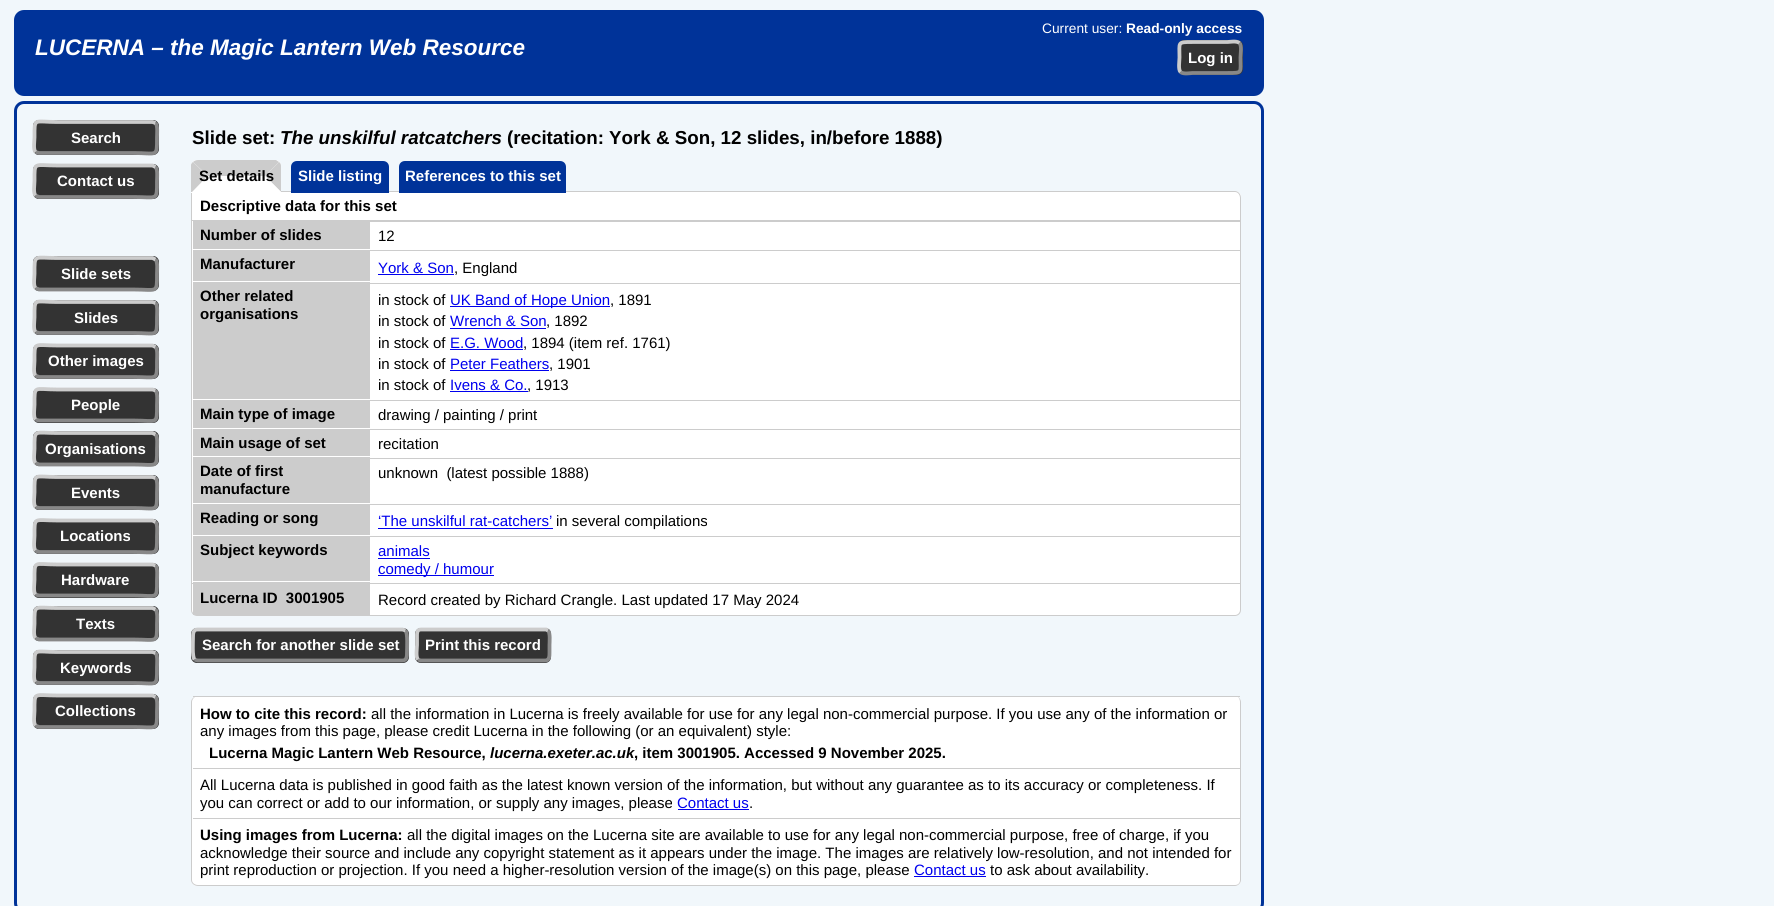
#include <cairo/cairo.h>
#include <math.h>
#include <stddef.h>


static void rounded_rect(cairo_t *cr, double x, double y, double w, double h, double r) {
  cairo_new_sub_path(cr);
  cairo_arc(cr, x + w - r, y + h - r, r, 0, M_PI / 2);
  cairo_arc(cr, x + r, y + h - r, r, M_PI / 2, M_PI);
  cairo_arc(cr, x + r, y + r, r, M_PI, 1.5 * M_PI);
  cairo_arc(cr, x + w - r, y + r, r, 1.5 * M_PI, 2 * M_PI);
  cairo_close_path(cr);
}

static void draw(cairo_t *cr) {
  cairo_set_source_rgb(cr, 241 / 255.0, 247 / 255.0, 251 / 255.0);
  cairo_paint(cr);
  cairo_set_source_rgb(cr, 0, 51 / 255.0, 153 / 255.0);
  rounded_rect(cr, 15.5, 11.5, 1247, 83, 8.5);
  cairo_fill_preserve(cr);
  cairo_set_line_width(cr, 3);
  cairo_stroke(cr);
  cairo_set_source_rgb(cr, 51 / 255.0, 51 / 255.0, 51 / 255.0);
  rounded_rect(cr, 1178, 40, 65, 35, 6);
  cairo_fill(cr);
  cairo_new_path(cr);
  cairo_move_to(cr, 1239.5, 43);
  cairo_curve_to(cr, 1242, 45.5, 1240.5, 54.5, 1240.5, 57.5);
  cairo_curve_to(cr, 1240.5, 73, 1243, 73, 1227.5, 73);
  cairo_line_to(cr, 1192.5, 73);
  cairo_curve_to(cr, 1190.5, 73, 1183.5, 74.5, 1180.5, 72);
  cairo_set_source_rgb(cr, 136 / 255.0, 136 / 255.0, 136 / 255.0);
  cairo_set_line_width(cr, 3.8);
  cairo_stroke(cr);
  cairo_new_path(cr);
  cairo_move_to(cr, 1180.5, 72);
  cairo_curve_to(cr, 1178, 69.5, 1179.5, 60.5, 1179.5, 57.5);
  cairo_curve_to(cr, 1179.5, 42, 1177, 42, 1192.5, 42);
  cairo_line_to(cr, 1227.5, 42);
  cairo_curve_to(cr, 1229.5, 42, 1236.5, 40.5, 1239.5, 43);
  cairo_set_source_rgb(cr, 204 / 255.0, 204 / 255.0, 204 / 255.0);
  cairo_stroke(cr);
  rounded_rect(cr, 15.5, 102.5, 1247, 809, 8.5);
  cairo_set_source_rgb(cr, 0, 51 / 255.0, 153 / 255.0);
  cairo_set_line_width(cr, 3);
  cairo_stroke(cr);
  cairo_set_source_rgb(cr, 51 / 255.0, 51 / 255.0, 51 / 255.0);
  rounded_rect(cr, 33, 120, 126, 35, 6);
  cairo_fill(cr);
  cairo_new_path(cr);
  cairo_move_to(cr, 155.5, 123);
  cairo_curve_to(cr, 158, 125.5, 157, 134.5, 157, 137.5);
  cairo_curve_to(cr, 157, 158, 157.5, 153, 133.5, 153);
  cairo_line_to(cr, 39, 153);
  cairo_line_to(cr, 35.5, 152);
  cairo_set_source_rgb(cr, 136 / 255.0, 136 / 255.0, 136 / 255.0);
  cairo_set_line_width(cr, 3.8);
  cairo_stroke(cr);
  cairo_new_path(cr);
  cairo_move_to(cr, 35.5, 152);
  cairo_curve_to(cr, 33, 149.5, 34.5, 140.5, 34.5, 137.5);
  cairo_curve_to(cr, 34.5, 117, 33.5, 122, 57.5, 122);
  cairo_line_to(cr, 152.5, 122);
  cairo_line_to(cr, 155.5, 123);
  cairo_set_source_rgb(cr, 204 / 255.0, 204 / 255.0, 204 / 255.0);
  cairo_stroke(cr);
  cairo_set_source_rgb(cr, 51 / 255.0, 51 / 255.0, 51 / 255.0);
  rounded_rect(cr, 33, 164, 126, 35, 6);
  cairo_fill(cr);
  cairo_new_path(cr);
  cairo_move_to(cr, 155.5, 167);
  cairo_curve_to(cr, 158, 169.5, 157, 178, 157, 181);
  cairo_curve_to(cr, 157, 201.5, 157.5, 197, 133.5, 197);
  cairo_line_to(cr, 39, 197);
  cairo_line_to(cr, 35.5, 195.5);
  cairo_set_source_rgb(cr, 136 / 255.0, 136 / 255.0, 136 / 255.0);
  cairo_stroke(cr);
  cairo_new_path(cr);
  cairo_move_to(cr, 35.5, 195.5);
  cairo_curve_to(cr, 33, 193, 34.5, 184.5, 34.5, 181);
  cairo_curve_to(cr, 34.5, 161, 33.5, 165.5, 57.5, 165.5);
  cairo_line_to(cr, 152.5, 165.5);
  cairo_line_to(cr, 155.5, 167);
  cairo_set_source_rgb(cr, 204 / 255.0, 204 / 255.0, 204 / 255.0);
  cairo_stroke(cr);
  cairo_set_source_rgb(cr, 51 / 255.0, 51 / 255.0, 51 / 255.0);
  rounded_rect(cr, 33, 256, 126, 35, 6);
  cairo_fill(cr);
  cairo_new_path(cr);
  cairo_move_to(cr, 155.5, 259.5);
  cairo_curve_to(cr, 158, 262, 157, 270.5, 157, 274);
  cairo_curve_to(cr, 157, 294, 157.5, 289.5, 133.5, 289.5);
  cairo_line_to(cr, 39, 289.5);
  cairo_line_to(cr, 35.5, 288);
  cairo_set_source_rgb(cr, 136 / 255.0, 136 / 255.0, 136 / 255.0);
  cairo_stroke(cr);
  cairo_new_path(cr);
  cairo_move_to(cr, 35.5, 288);
  cairo_curve_to(cr, 33, 285.5, 34.5, 277, 34.5, 274);
  cairo_curve_to(cr, 34.5, 253.5, 33.5, 258, 57.5, 258);
  cairo_line_to(cr, 152.5, 258);
  cairo_line_to(cr, 155.5, 259.5);
  cairo_set_source_rgb(cr, 204 / 255.0, 204 / 255.0, 204 / 255.0);
  cairo_stroke(cr);
  cairo_set_source_rgb(cr, 51 / 255.0, 51 / 255.0, 51 / 255.0);
  rounded_rect(cr, 33, 300, 126, 35, 6);
  cairo_fill(cr);
  cairo_new_path(cr);
  cairo_move_to(cr, 155.5, 303);
  cairo_curve_to(cr, 158, 305.5, 157, 314.5, 157, 317.5);
  cairo_curve_to(cr, 157, 338, 157.5, 333, 133.5, 333);
  cairo_line_to(cr, 39, 333);
  cairo_line_to(cr, 35.5, 332);
  cairo_set_source_rgb(cr, 136 / 255.0, 136 / 255.0, 136 / 255.0);
  cairo_stroke(cr);
  cairo_new_path(cr);
  cairo_move_to(cr, 35.5, 332);
  cairo_curve_to(cr, 33, 329.5, 34.5, 320.5, 34.5, 317.5);
  cairo_curve_to(cr, 34.5, 297, 33.5, 302, 57.5, 302);
  cairo_line_to(cr, 152.5, 302);
  cairo_line_to(cr, 155.5, 303);
  cairo_set_source_rgb(cr, 204 / 255.0, 204 / 255.0, 204 / 255.0);
  cairo_stroke(cr);
  cairo_set_source_rgb(cr, 51 / 255.0, 51 / 255.0, 51 / 255.0);
  rounded_rect(cr, 33, 344, 126, 35, 6);
  cairo_fill(cr);
  cairo_new_path(cr);
  cairo_move_to(cr, 155.5, 347);
  cairo_curve_to(cr, 158, 349.5, 157, 358, 157, 361);
  cairo_curve_to(cr, 157, 381.5, 157.5, 377, 133.5, 377);
  cairo_line_to(cr, 39, 377);
  cairo_line_to(cr, 35.5, 375.5);
  cairo_set_source_rgb(cr, 136 / 255.0, 136 / 255.0, 136 / 255.0);
  cairo_stroke(cr);
  cairo_new_path(cr);
  cairo_move_to(cr, 35.5, 375.5);
  cairo_curve_to(cr, 33, 373, 34.5, 364.5, 34.5, 361);
  cairo_curve_to(cr, 34.5, 341, 33.5, 345.5, 57.5, 345.5);
  cairo_line_to(cr, 152.5, 345.5);
  cairo_line_to(cr, 155.5, 347);
  cairo_set_source_rgb(cr, 204 / 255.0, 204 / 255.0, 204 / 255.0);
  cairo_stroke(cr);
  cairo_set_source_rgb(cr, 51 / 255.0, 51 / 255.0, 51 / 255.0);
  rounded_rect(cr, 33, 388, 126, 35, 6);
  cairo_fill(cr);
  cairo_new_path(cr);
  cairo_move_to(cr, 155.5, 390.5);
  cairo_curve_to(cr, 158, 393, 157, 402, 157, 405);
  cairo_curve_to(cr, 157, 425.5, 157.5, 420.5, 133.5, 420.5);
  cairo_line_to(cr, 39, 420.5);
  cairo_line_to(cr, 35.5, 419.5);
  cairo_set_source_rgb(cr, 136 / 255.0, 136 / 255.0, 136 / 255.0);
  cairo_stroke(cr);
  cairo_new_path(cr);
  cairo_move_to(cr, 35.5, 419.5);
  cairo_curve_to(cr, 33, 417, 34.5, 408, 34.5, 405);
  cairo_curve_to(cr, 34.5, 384.5, 33.5, 389.5, 57.5, 389.5);
  cairo_line_to(cr, 152.5, 389.5);
  cairo_line_to(cr, 155.5, 390.5);
  cairo_set_source_rgb(cr, 204 / 255.0, 204 / 255.0, 204 / 255.0);
  cairo_stroke(cr);
  cairo_set_source_rgb(cr, 51 / 255.0, 51 / 255.0, 51 / 255.0);
  rounded_rect(cr, 33, 431, 126, 35, 6);
  cairo_fill(cr);
  cairo_new_path(cr);
  cairo_move_to(cr, 155.5, 434.5);
  cairo_curve_to(cr, 158, 437, 157, 445.5, 157, 449);
  cairo_curve_to(cr, 157, 469, 157.5, 464.5, 133.5, 464.5);
  cairo_line_to(cr, 39, 464.5);
  cairo_line_to(cr, 35.5, 463);
  cairo_set_source_rgb(cr, 136 / 255.0, 136 / 255.0, 136 / 255.0);
  cairo_stroke(cr);
  cairo_new_path(cr);
  cairo_move_to(cr, 35.5, 463);
  cairo_curve_to(cr, 33, 460.5, 34.5, 452, 34.5, 449);
  cairo_curve_to(cr, 34.5, 428.5, 33.5, 433, 57.5, 433);
  cairo_line_to(cr, 152.5, 433);
  cairo_line_to(cr, 155.5, 434.5);
  cairo_set_source_rgb(cr, 204 / 255.0, 204 / 255.0, 204 / 255.0);
  cairo_stroke(cr);
  cairo_set_source_rgb(cr, 51 / 255.0, 51 / 255.0, 51 / 255.0);
  rounded_rect(cr, 33, 475, 126, 35, 6);
  cairo_fill(cr);
  cairo_new_path(cr);
  cairo_move_to(cr, 155.5, 478);
  cairo_curve_to(cr, 158, 480.5, 157, 489.5, 157, 492.5);
  cairo_curve_to(cr, 157, 513, 157.5, 508, 133.5, 508);
  cairo_line_to(cr, 39, 508);
  cairo_line_to(cr, 35.5, 507);
  cairo_set_source_rgb(cr, 136 / 255.0, 136 / 255.0, 136 / 255.0);
  cairo_stroke(cr);
  cairo_new_path(cr);
  cairo_move_to(cr, 35.5, 507);
  cairo_curve_to(cr, 33, 504.5, 34.5, 495.5, 34.5, 492.5);
  cairo_curve_to(cr, 34.5, 472, 33.5, 477, 57.5, 477);
  cairo_line_to(cr, 152.5, 477);
  cairo_line_to(cr, 155.5, 478);
  cairo_set_source_rgb(cr, 204 / 255.0, 204 / 255.0, 204 / 255.0);
  cairo_stroke(cr);
  cairo_set_source_rgb(cr, 51 / 255.0, 51 / 255.0, 51 / 255.0);
  rounded_rect(cr, 33, 519, 126, 35, 6);
  cairo_fill(cr);
  cairo_new_path(cr);
  cairo_move_to(cr, 155.5, 522);
  cairo_curve_to(cr, 158, 524.5, 157, 533, 157, 536);
  cairo_curve_to(cr, 157, 556.5, 157.5, 552, 133.5, 552);
  cairo_line_to(cr, 39, 552);
  cairo_line_to(cr, 35.5, 550.5);
  cairo_set_source_rgb(cr, 136 / 255.0, 136 / 255.0, 136 / 255.0);
  cairo_stroke(cr);
  cairo_new_path(cr);
  cairo_move_to(cr, 35.5, 550.5);
  cairo_curve_to(cr, 33, 548, 34.5, 539.5, 34.5, 536);
  cairo_curve_to(cr, 34.5, 516, 33.5, 520.5, 57.5, 520.5);
  cairo_line_to(cr, 152.5, 520.5);
  cairo_line_to(cr, 155.5, 522);
  cairo_set_source_rgb(cr, 204 / 255.0, 204 / 255.0, 204 / 255.0);
  cairo_stroke(cr);
  cairo_set_source_rgb(cr, 51 / 255.0, 51 / 255.0, 51 / 255.0);
  rounded_rect(cr, 33, 563, 126, 35, 6);
  cairo_fill(cr);
  cairo_new_path(cr);
  cairo_move_to(cr, 155.5, 565.5);
  cairo_curve_to(cr, 158, 568, 157, 577, 157, 580);
  cairo_curve_to(cr, 157, 600.5, 157.5, 595.5, 133.5, 595.5);
  cairo_line_to(cr, 39, 595.5);
  cairo_line_to(cr, 35.5, 594.5);
  cairo_set_source_rgb(cr, 136 / 255.0, 136 / 255.0, 136 / 255.0);
  cairo_stroke(cr);
  cairo_new_path(cr);
  cairo_move_to(cr, 35.5, 594.5);
  cairo_curve_to(cr, 33, 592, 34.5, 583, 34.5, 580);
  cairo_curve_to(cr, 34.5, 559.5, 33.5, 564.5, 57.5, 564.5);
  cairo_line_to(cr, 152.5, 564.5);
  cairo_line_to(cr, 155.5, 565.5);
  cairo_set_source_rgb(cr, 204 / 255.0, 204 / 255.0, 204 / 255.0);
  cairo_stroke(cr);
  cairo_set_source_rgb(cr, 51 / 255.0, 51 / 255.0, 51 / 255.0);
  rounded_rect(cr, 33, 606, 126, 35, 6);
  cairo_fill(cr);
  cairo_new_path(cr);
  cairo_move_to(cr, 155.5, 609.5);
  cairo_curve_to(cr, 158, 612, 157, 620.5, 157, 624);
  cairo_curve_to(cr, 157, 644, 157.5, 639.5, 133.5, 639.5);
  cairo_line_to(cr, 39, 639.5);
  cairo_line_to(cr, 35.5, 638);
  cairo_set_source_rgb(cr, 136 / 255.0, 136 / 255.0, 136 / 255.0);
  cairo_stroke(cr);
  cairo_new_path(cr);
  cairo_move_to(cr, 35.5, 638);
  cairo_curve_to(cr, 33, 635.5, 34.5, 627, 34.5, 624);
  cairo_curve_to(cr, 34.5, 603.5, 33.5, 608, 57.5, 608);
  cairo_line_to(cr, 152.5, 608);
  cairo_line_to(cr, 155.5, 609.5);
  cairo_set_source_rgb(cr, 204 / 255.0, 204 / 255.0, 204 / 255.0);
  cairo_stroke(cr);
  cairo_set_source_rgb(cr, 51 / 255.0, 51 / 255.0, 51 / 255.0);
  rounded_rect(cr, 33, 650, 126, 35, 6);
  cairo_fill(cr);
  cairo_new_path(cr);
  cairo_move_to(cr, 155.5, 653);
  cairo_curve_to(cr, 158, 655.5, 157, 664.5, 157, 667.5);
  cairo_curve_to(cr, 157, 688, 157.5, 683, 133.5, 683);
  cairo_line_to(cr, 39, 683);
  cairo_line_to(cr, 35.5, 682);
  cairo_set_source_rgb(cr, 136 / 255.0, 136 / 255.0, 136 / 255.0);
  cairo_stroke(cr);
  cairo_new_path(cr);
  cairo_move_to(cr, 35.5, 682);
  cairo_curve_to(cr, 33, 679.5, 34.5, 670.5, 34.5, 667.5);
  cairo_curve_to(cr, 34.5, 647, 33.5, 652, 57.5, 652);
  cairo_line_to(cr, 152.5, 652);
  cairo_line_to(cr, 155.5, 653);
  cairo_set_source_rgb(cr, 204 / 255.0, 204 / 255.0, 204 / 255.0);
  cairo_stroke(cr);
  cairo_set_source_rgb(cr, 51 / 255.0, 51 / 255.0, 51 / 255.0);
  rounded_rect(cr, 33, 694, 126, 35, 6);
  cairo_fill(cr);
  cairo_new_path(cr);
  cairo_move_to(cr, 155.5, 697);
  cairo_curve_to(cr, 158, 699.5, 157, 708, 157, 711);
  cairo_curve_to(cr, 157, 731.5, 157.5, 727, 133.5, 727);
  cairo_line_to(cr, 39, 727);
  cairo_line_to(cr, 35.5, 725.5);
  cairo_set_source_rgb(cr, 136 / 255.0, 136 / 255.0, 136 / 255.0);
  cairo_stroke(cr);
  cairo_new_path(cr);
  cairo_move_to(cr, 35.5, 725.5);
  cairo_curve_to(cr, 33, 723, 34.5, 714.5, 34.5, 711);
  cairo_curve_to(cr, 34.5, 691, 33.5, 695.5, 57.5, 695.5);
  cairo_line_to(cr, 152.5, 695.5);
  cairo_line_to(cr, 155.5, 697);
  cairo_set_source_rgb(cr, 204 / 255.0, 204 / 255.0, 204 / 255.0);
  cairo_stroke(cr);
  cairo_set_source_rgb(cr, 1, 1, 1);
  cairo_new_path(cr);
  cairo_move_to(cr, 191, 191);
  cairo_line_to(cr, 1235, 191);
  cairo_curve_to(cr, 1238.5, 191, 1241, 193.5, 1241, 197);
  cairo_line_to(cr, 1241, 220);
  cairo_line_to(cr, 191, 220);
  cairo_close_path(cr);
  cairo_fill(cr);
  cairo_set_source_rgb(cr, 204 / 255.0, 204 / 255.0, 204 / 255.0);
  cairo_set_fill_rule(cr, CAIRO_FILL_RULE_EVEN_ODD);
  cairo_new_path(cr);
  cairo_move_to(cr, 191, 191);
  cairo_line_to(cr, 1235, 191);
  cairo_curve_to(cr, 1238, 191, 1241, 194, 1241, 198);
  cairo_line_to(cr, 1241, 220);
  cairo_line_to(cr, 191, 220);
  cairo_close_path(cr);
  cairo_move_to(cr, 192, 192);
  cairo_line_to(cr, 1235, 192);
  cairo_curve_to(cr, 1238, 192, 1240, 195, 1240, 198);
  cairo_line_to(cr, 1240, 220);
  cairo_line_to(cr, 192, 220);
  cairo_close_path(cr);
  cairo_fill(cr);
  cairo_set_source_rgb(cr, 1, 1, 1);
  cairo_new_path(cr);
  cairo_move_to(cr, 197, 160);
  cairo_line_to(cr, 275, 160);
  cairo_curve_to(cr, 278.5, 160, 281, 162.5, 281, 166);
  cairo_line_to(cr, 281, 193);
  cairo_line_to(cr, 191, 193);
  cairo_line_to(cr, 191, 166);
  cairo_curve_to(cr, 191, 162.5, 193.5, 160, 197, 160);
  cairo_close_path(cr);
  cairo_fill(cr);
  cairo_set_source_rgb(cr, 204 / 255.0, 204 / 255.0, 204 / 255.0);
  cairo_set_fill_rule(cr, CAIRO_FILL_RULE_WINDING);
  cairo_new_path(cr);
  cairo_move_to(cr, 198, 160);
  cairo_line_to(cr, 276, 160);
  cairo_line_to(cr, 279, 162);
  cairo_line_to(cr, 265, 176);
  cairo_line_to(cr, 208, 176);
  cairo_line_to(cr, 193, 162);
  cairo_curve_to(cr, 194, 161, 196, 160, 198, 160);
  cairo_close_path(cr);
  cairo_fill(cr);
  cairo_new_path(cr);
  cairo_move_to(cr, 279, 162);
  cairo_line_to(cr, 265, 176);
  cairo_line_to(cr, 281, 192);
  cairo_line_to(cr, 281, 166);
  cairo_curve_to(cr, 281, 164.5, 280.5, 163, 279, 162);
  cairo_close_path(cr);
  cairo_fill(cr);
  cairo_set_source_rgb(cr, 1, 1, 1);
  cairo_new_path(cr);
  cairo_move_to(cr, 281, 192);
  cairo_line_to(cr, 265, 176);
  cairo_line_to(cr, 208, 176);
  cairo_line_to(cr, 192, 192);
  cairo_close_path(cr);
  cairo_fill(cr);
  cairo_set_source_rgb(cr, 204 / 255.0, 204 / 255.0, 204 / 255.0);
  cairo_new_path(cr);
  cairo_move_to(cr, 192, 192);
  cairo_line_to(cr, 207.5, 176);
  cairo_line_to(cr, 193, 162);
  cairo_curve_to(cr, 192, 162.5, 191.5, 163.5, 191, 164.5);
  cairo_line_to(cr, 191, 192);
  cairo_close_path(cr);
  cairo_fill(cr);
  cairo_set_source_rgb(cr, 0, 51 / 255.0, 153 / 255.0);
  cairo_new_path(cr);
  cairo_move_to(cr, 297, 161);
  cairo_line_to(cr, 383, 161);
  cairo_curve_to(cr, 386.5, 161, 389, 163.5, 389, 167);
  cairo_line_to(cr, 389, 193);
  cairo_line_to(cr, 291, 193);
  cairo_line_to(cr, 291, 167);
  cairo_curve_to(cr, 291, 163.5, 293.5, 161, 297, 161);
  cairo_close_path(cr);
  cairo_fill(cr);
  cairo_new_path(cr);
  cairo_move_to(cr, 405, 161);
  cairo_line_to(cr, 560, 161);
  cairo_curve_to(cr, 563.5, 161, 566, 163.5, 566, 167);
  cairo_line_to(cr, 566, 193);
  cairo_line_to(cr, 399, 193);
  cairo_line_to(cr, 399, 167);
  cairo_curve_to(cr, 399, 163.5, 401.5, 161, 405, 161);
  cairo_close_path(cr);
  cairo_fill(cr);
  cairo_set_source_rgb(cr, 204 / 255.0, 204 / 255.0, 204 / 255.0);
  cairo_rectangle(cr, 191, 220, 1050, 1);
  cairo_fill(cr);
  cairo_set_source_rgb(cr, 1, 1, 1);
  cairo_rectangle(cr, 192, 221, 1048, 362);
  cairo_fill(cr);
  cairo_set_source_rgb(cr, 204 / 255.0, 204 / 255.0, 204 / 255.0);
  cairo_rectangle(cr, 1240, 221, 1, 362);
  cairo_fill(cr);
  cairo_rectangle(cr, 191, 221, 1, 362);
  cairo_fill(cr);
  cairo_rectangle(cr, 193, 221, 177, 28);
  cairo_fill(cr);
  cairo_rectangle(cr, 370, 221, 870, 1);
  cairo_fill(cr);
  cairo_rectangle(cr, 193, 250, 177, 149);
  cairo_fill(cr);
  cairo_set_source_rgb(cr, 1, 1, 1);
  cairo_rectangle(cr, 193, 281, 177, 1);
  cairo_fill(cr);
  cairo_set_source_rgb(cr, 204 / 255.0, 204 / 255.0, 204 / 255.0);
  cairo_rectangle(cr, 370, 250, 870, 1);
  cairo_fill(cr);
  cairo_set_source_rgb(cr, 0, 0, 238 / 255.0);
  cairo_rectangle(cr, 378, 274, 76, 1);
  cairo_fill(cr);
  cairo_set_source_rgb(cr, 204 / 255.0, 204 / 255.0, 204 / 255.0);
  cairo_rectangle(cr, 370, 283, 870, 1);
  cairo_fill(cr);
  cairo_set_source_rgb(cr, 0, 0, 238 / 255.0);
  cairo_rectangle(cr, 450, 306, 160, 1);
  cairo_fill(cr);
  cairo_rectangle(cr, 450, 328, 96, 1);
  cairo_fill(cr);
  cairo_rectangle(cr, 450, 349, 73, 1);
  cairo_fill(cr);
  cairo_rectangle(cr, 450, 370, 99, 1);
  cairo_fill(cr);
  cairo_rectangle(cr, 450, 391, 78, 1);
  cairo_fill(cr);
  cairo_set_source_rgb(cr, 204 / 255.0, 204 / 255.0, 204 / 255.0);
  cairo_rectangle(cr, 193, 400, 177, 28);
  cairo_fill(cr);
  cairo_rectangle(cr, 370, 400, 870, 1);
  cairo_fill(cr);
  cairo_rectangle(cr, 193, 429, 177, 74);
  cairo_fill(cr);
  cairo_set_source_rgb(cr, 1, 1, 1);
  cairo_rectangle(cr, 193, 456, 177, 1);
  cairo_fill(cr);
  cairo_set_source_rgb(cr, 204 / 255.0, 204 / 255.0, 204 / 255.0);
  cairo_rectangle(cr, 370, 429, 870, 1);
  cairo_fill(cr);
  cairo_rectangle(cr, 370, 458, 870, 1);
  cairo_fill(cr);
  cairo_rectangle(cr, 193, 504, 177, 31);
  cairo_fill(cr);
  cairo_rectangle(cr, 370, 504, 870, 1);
  cairo_fill(cr);
  cairo_set_source_rgb(cr, 0, 0, 238 / 255.0);
  cairo_rectangle(cr, 378, 528, 175, 1);
  cairo_fill(cr);
  cairo_set_source_rgb(cr, 204 / 255.0, 204 / 255.0, 204 / 255.0);
  cairo_rectangle(cr, 193, 536, 177, 47);
  cairo_fill(cr);
  cairo_set_source_rgb(cr, 1, 1, 1);
  cairo_rectangle(cr, 193, 581, 177, 1);
  cairo_fill(cr);
  cairo_set_source_rgb(cr, 204 / 255.0, 204 / 255.0, 204 / 255.0);
  cairo_rectangle(cr, 370, 536, 870, 1);
  cairo_fill(cr);
  cairo_set_source_rgb(cr, 0, 0, 238 / 255.0);
  cairo_rectangle(cr, 378, 558, 52, 1);
  cairo_fill(cr);
  cairo_rectangle(cr, 378, 575, 116, 1);
  cairo_fill(cr);
  cairo_set_source_rgb(cr, 1, 1, 1);
  cairo_new_path(cr);
  cairo_move_to(cr, 191.5, 583.5);
  cairo_line_to(cr, 1240.5, 583.5);
  cairo_line_to(cr, 1240.5, 610);
  cairo_curve_to(cr, 1240.5, 613, 1238, 615.5, 1235, 615.5);
  cairo_line_to(cr, 197, 615.5);
  cairo_curve_to(cr, 194, 615.5, 191.5, 613, 191.5, 610);
  cairo_close_path(cr);
  cairo_fill_preserve(cr);
  cairo_set_source_rgb(cr, 204 / 255.0, 204 / 255.0, 204 / 255.0);
  cairo_set_line_width(cr, 1);
  cairo_stroke(cr);
  cairo_rectangle(cr, 193, 584, 177, 31);
  cairo_fill(cr);
  cairo_set_source_rgb(cr, 51 / 255.0, 51 / 255.0, 51 / 255.0);
  rounded_rect(cr, 191, 628, 218, 35, 6);
  cairo_fill(cr);
  cairo_new_path(cr);
  cairo_move_to(cr, 405.5, 630.5);
  cairo_curve_to(cr, 408, 633.5, 407, 648.5, 407, 652.5);
  cairo_curve_to(cr, 407, 656, 407, 660.5, 402.5, 660.5);
  cairo_line_to(cr, 197.5, 660.5);
  cairo_line_to(cr, 194.5, 659.5);
  cairo_set_source_rgb(cr, 136 / 255.0, 136 / 255.0, 136 / 255.0);
  cairo_set_line_width(cr, 3.8);
  cairo_stroke(cr);
  cairo_save(cr);
  cairo_rectangle(cr, 191, 616, 1055, 63);
  cairo_clip(cr);
  cairo_new_path(cr);
  cairo_move_to(cr, 194.5, 659.5);
  cairo_curve_to(cr, 192, 656.5, 193, 641.5, 193, 637.5);
  cairo_curve_to(cr, 193, 634, 193, 629.5, 197.5, 629.5);
  cairo_line_to(cr, 402.5, 629.5);
  cairo_line_to(cr, 405.5, 630.5);
  cairo_set_source_rgb(cr, 204 / 255.0, 204 / 255.0, 204 / 255.0);
  cairo_stroke(cr);
  cairo_restore(cr);
  cairo_set_source_rgb(cr, 51 / 255.0, 51 / 255.0, 51 / 255.0);
  rounded_rect(cr, 415, 628, 136, 35, 6);
  cairo_fill(cr);
  cairo_new_path(cr);
  cairo_move_to(cr, 548, 630.5);
  cairo_curve_to(cr, 550.5, 633, 549.5, 642, 549.5, 645);
  cairo_line_to(cr, 549.5, 652.5);
  cairo_curve_to(cr, 549.5, 656, 549.5, 660.5, 545, 660.5);
  cairo_line_to(cr, 420.5, 660.5);
  cairo_line_to(cr, 418, 659.5);
  cairo_set_source_rgb(cr, 136 / 255.0, 136 / 255.0, 136 / 255.0);
  cairo_stroke(cr);
  cairo_new_path(cr);
  cairo_move_to(cr, 418, 659.5);
  cairo_curve_to(cr, 415.5, 657, 417, 648, 417, 645);
  cairo_line_to(cr, 417, 637.5);
  cairo_curve_to(cr, 417, 634, 416.5, 629.5, 421, 629.5);
  cairo_line_to(cr, 546, 629.5);
  cairo_line_to(cr, 548, 630.5);
  cairo_set_source_rgb(cr, 204 / 255.0, 204 / 255.0, 204 / 255.0);
  cairo_stroke(cr);
  cairo_set_source_rgb(cr, 1, 1, 1);
  rounded_rect(cr, 191, 696, 1050, 190, 6);
  cairo_fill(cr);
  cairo_set_source_rgb(cr, 204 / 255.0, 204 / 255.0, 204 / 255.0);
  cairo_set_fill_rule(cr, CAIRO_FILL_RULE_EVEN_ODD);
  cairo_new_path(cr);
  cairo_move_to(cr, 198, 696);
  cairo_line_to(cr, 1235, 696);
  cairo_curve_to(cr, 1238, 696, 1241, 699, 1241, 702);
  cairo_line_to(cr, 1241, 880);
  cairo_curve_to(cr, 1241, 883, 1238, 886, 1235, 886);
  cairo_line_to(cr, 198, 886);
  cairo_curve_to(cr, 194, 886, 191, 883, 191, 880);
  cairo_line_to(cr, 191, 702);
  cairo_curve_to(cr, 191, 699, 194, 696, 198, 696);
  cairo_close_path(cr);
  cairo_move_to(cr, 198, 696);
  cairo_line_to(cr, 1235, 696);
  cairo_curve_to(cr, 1238, 696, 1240, 699, 1240, 702);
  cairo_line_to(cr, 1240, 880);
  cairo_curve_to(cr, 1240, 883, 1238, 885, 1235, 885);
  cairo_line_to(cr, 198, 885);
  cairo_curve_to(cr, 195, 885, 192, 883, 192, 880);
  cairo_line_to(cr, 192, 702);
  cairo_curve_to(cr, 192, 699, 195, 696, 198, 696);
  cairo_close_path(cr);
  cairo_fill(cr);
  cairo_rectangle(cr, 193, 696, 1047, 1);
  cairo_fill(cr);
  cairo_rectangle(cr, 193, 768, 1047, 1);
  cairo_fill(cr);
  cairo_set_source_rgb(cr, 0, 0, 238 / 255.0);
  cairo_rectangle(cr, 678, 809, 71, 1);
  cairo_fill(cr);
  cairo_set_source_rgb(cr, 204 / 255.0, 204 / 255.0, 204 / 255.0);
  cairo_rectangle(cr, 193, 818, 1047, 1);
  cairo_fill(cr);
  cairo_set_source_rgb(cr, 0, 0, 238 / 255.0);
  cairo_rectangle(cr, 914, 876, 72, 1);
  cairo_fill(cr);
  cairo_select_font_face(cr, "Liberation Sans", CAIRO_FONT_SLANT_ITALIC, CAIRO_FONT_WEIGHT_BOLD);
  cairo_set_font_size(cr, 22.5);
  cairo_set_source_rgb(cr, 1, 1, 1);
  cairo_move_to(cr, 35, 55);
  cairo_show_text(cr, "LUCERNA – the Magic Lantern Web Resource");
  cairo_select_font_face(cr, "Liberation Sans", CAIRO_FONT_SLANT_NORMAL, CAIRO_FONT_WEIGHT_NORMAL);
  cairo_set_font_size(cr, 13.75);
  cairo_move_to(cr, 1042, 33);
  cairo_show_text(cr, "Current user:");
  cairo_select_font_face(cr, "Liberation Sans", CAIRO_FONT_SLANT_NORMAL, CAIRO_FONT_WEIGHT_BOLD);
  cairo_move_to(cr, 1126, 33);
  cairo_show_text(cr, "Read-only access");
  cairo_set_font_size(cr, 15);
  cairo_move_to(cr, 1188, 63);
  cairo_show_text(cr, "Log in");
  cairo_move_to(cr, 71, 143);
  cairo_show_text(cr, "Search");
  cairo_move_to(cr, 57, 186);
  cairo_show_text(cr, "Contact us");
  cairo_move_to(cr, 61, 279);
  cairo_show_text(cr, "Slide sets");
  cairo_move_to(cr, 74, 323);
  cairo_show_text(cr, "Slides");
  cairo_move_to(cr, 48, 366);
  cairo_show_text(cr, "Other images");
  cairo_move_to(cr, 71, 410);
  cairo_show_text(cr, "People");
  cairo_move_to(cr, 45, 454);
  cairo_show_text(cr, "Organisations");
  cairo_move_to(cr, 71, 498);
  cairo_show_text(cr, "Events");
  cairo_move_to(cr, 60, 541);
  cairo_show_text(cr, "Locations");
  cairo_move_to(cr, 61, 585);
  cairo_show_text(cr, "Hardware");
  cairo_move_to(cr, 76, 629);
  cairo_show_text(cr, "Texts");
  cairo_move_to(cr, 60, 673);
  cairo_show_text(cr, "Keywords");
  cairo_move_to(cr, 55, 716);
  cairo_show_text(cr, "Collections");
  cairo_set_font_size(cr, 18.75);
  cairo_set_source_rgb(cr, 0, 0, 0);
  cairo_move_to(cr, 192, 144);
  cairo_show_text(cr, "Slide set:");
  cairo_select_font_face(cr, "Liberation Sans", CAIRO_FONT_SLANT_ITALIC, CAIRO_FONT_WEIGHT_BOLD);
  cairo_move_to(cr, 280, 144);
  cairo_show_text(cr, "The unskilful ratcatchers");
  cairo_select_font_face(cr, "Liberation Sans", CAIRO_FONT_SLANT_NORMAL, CAIRO_FONT_WEIGHT_BOLD);
  cairo_move_to(cr, 507, 144);
  cairo_show_text(cr, "(recitation: York & Son, 12 slides, in/before 1888)");
  cairo_set_font_size(cr, 15);
  cairo_move_to(cr, 199, 181);
  cairo_show_text(cr, "Set details");
  cairo_set_source_rgb(cr, 1, 1, 1);
  cairo_move_to(cr, 298, 181);
  cairo_show_text(cr, "Slide listing");
  cairo_move_to(cr, 405, 181);
  cairo_show_text(cr, "References to this set");
  cairo_set_source_rgb(cr, 0, 0, 0);
  cairo_move_to(cr, 200, 211);
  cairo_show_text(cr, "Descriptive data for this set");
  cairo_move_to(cr, 200, 240);
  cairo_show_text(cr, "Number of slides");
  cairo_select_font_face(cr, "Liberation Sans", CAIRO_FONT_SLANT_NORMAL, CAIRO_FONT_WEIGHT_NORMAL);
  cairo_move_to(cr, 378, 241);
  cairo_show_text(cr, "12");
  cairo_select_font_face(cr, "Liberation Sans", CAIRO_FONT_SLANT_NORMAL, CAIRO_FONT_WEIGHT_BOLD);
  cairo_move_to(cr, 200, 269);
  cairo_show_text(cr, "Manufacturer");
  cairo_select_font_face(cr, "Liberation Sans", CAIRO_FONT_SLANT_NORMAL, CAIRO_FONT_WEIGHT_NORMAL);
  cairo_set_source_rgb(cr, 0, 0, 238 / 255.0);
  cairo_move_to(cr, 378, 273);
  cairo_show_text(cr, "York & Son");
  cairo_set_source_rgb(cr, 0, 0, 0);
  cairo_move_to(cr, 454, 273);
  cairo_show_text(cr, ", England");
  cairo_select_font_face(cr, "Liberation Sans", CAIRO_FONT_SLANT_NORMAL, CAIRO_FONT_WEIGHT_BOLD);
  cairo_move_to(cr, 200, 301);
  cairo_show_text(cr, "Other related");
  cairo_move_to(cr, 200, 319);
  cairo_show_text(cr, "organisations");
  cairo_select_font_face(cr, "Liberation Sans", CAIRO_FONT_SLANT_NORMAL, CAIRO_FONT_WEIGHT_NORMAL);
  cairo_move_to(cr, 378, 305);
  cairo_show_text(cr, "in stock of");
  cairo_set_source_rgb(cr, 0, 0, 238 / 255.0);
  cairo_move_to(cr, 450, 305);
  cairo_show_text(cr, "UK Band of Hope Union");
  cairo_set_source_rgb(cr, 0, 0, 0);
  cairo_move_to(cr, 610, 305);
  cairo_show_text(cr, ", 1891");
  cairo_move_to(cr, 378, 326);
  cairo_show_text(cr, "in stock of");
  cairo_set_source_rgb(cr, 0, 0, 238 / 255.0);
  cairo_move_to(cr, 450, 326);
  cairo_show_text(cr, "Wrench & Son");
  cairo_set_source_rgb(cr, 0, 0, 0);
  cairo_move_to(cr, 546, 326);
  cairo_show_text(cr, ", 1892");
  cairo_move_to(cr, 378, 348);
  cairo_show_text(cr, "in stock of");
  cairo_set_source_rgb(cr, 0, 0, 238 / 255.0);
  cairo_move_to(cr, 450, 348);
  cairo_show_text(cr, "E.G. Wood");
  cairo_set_source_rgb(cr, 0, 0, 0);
  cairo_move_to(cr, 523, 348);
  cairo_show_text(cr, ", 1894 (item ref. 1761)");
  cairo_move_to(cr, 378, 369);
  cairo_show_text(cr, "in stock of");
  cairo_set_source_rgb(cr, 0, 0, 238 / 255.0);
  cairo_move_to(cr, 450, 369);
  cairo_show_text(cr, "Peter Feathers");
  cairo_set_source_rgb(cr, 0, 0, 0);
  cairo_move_to(cr, 549, 369);
  cairo_show_text(cr, ", 1901");
  cairo_move_to(cr, 378, 390);
  cairo_show_text(cr, "in stock of");
  cairo_set_source_rgb(cr, 0, 0, 238 / 255.0);
  cairo_move_to(cr, 450, 390);
  cairo_show_text(cr, "Ivens & Co.");
  cairo_set_source_rgb(cr, 0, 0, 0);
  cairo_move_to(cr, 527, 390);
  cairo_show_text(cr, ", 1913");
  cairo_select_font_face(cr, "Liberation Sans", CAIRO_FONT_SLANT_NORMAL, CAIRO_FONT_WEIGHT_BOLD);
  cairo_move_to(cr, 200, 419);
  cairo_show_text(cr, "Main type of image");
  cairo_select_font_face(cr, "Liberation Sans", CAIRO_FONT_SLANT_NORMAL, CAIRO_FONT_WEIGHT_NORMAL);
  cairo_move_to(cr, 378, 420);
  cairo_show_text(cr, "drawing / painting / print");
  cairo_select_font_face(cr, "Liberation Sans", CAIRO_FONT_SLANT_NORMAL, CAIRO_FONT_WEIGHT_BOLD);
  cairo_move_to(cr, 200, 448);
  cairo_show_text(cr, "Main usage of set");
  cairo_select_font_face(cr, "Liberation Sans", CAIRO_FONT_SLANT_NORMAL, CAIRO_FONT_WEIGHT_NORMAL);
  cairo_move_to(cr, 378, 449);
  cairo_show_text(cr, "recitation");
  cairo_select_font_face(cr, "Liberation Sans", CAIRO_FONT_SLANT_NORMAL, CAIRO_FONT_WEIGHT_BOLD);
  cairo_move_to(cr, 200, 476);
  cairo_show_text(cr, "Date of first");
  cairo_move_to(cr, 200, 494);
  cairo_show_text(cr, "manufacture");
  cairo_select_font_face(cr, "Liberation Sans", CAIRO_FONT_SLANT_NORMAL, CAIRO_FONT_WEIGHT_NORMAL);
  cairo_move_to(cr, 378, 478);
  cairo_show_text(cr, "unknown  (latest possible 1888)");
  cairo_select_font_face(cr, "Liberation Sans", CAIRO_FONT_SLANT_NORMAL, CAIRO_FONT_WEIGHT_BOLD);
  cairo_move_to(cr, 200, 523);
  cairo_show_text(cr, "Reading or song");
  cairo_select_font_face(cr, "Liberation Sans", CAIRO_FONT_SLANT_NORMAL, CAIRO_FONT_WEIGHT_NORMAL);
  cairo_set_source_rgb(cr, 0, 0, 238 / 255.0);
  cairo_move_to(cr, 378, 526);
  cairo_show_text(cr, "‘The unskilful rat-catchers’");
  cairo_set_source_rgb(cr, 0, 0, 0);
  cairo_move_to(cr, 556, 526);
  cairo_show_text(cr, "in several compilations");
  cairo_select_font_face(cr, "Liberation Sans", CAIRO_FONT_SLANT_NORMAL, CAIRO_FONT_WEIGHT_BOLD);
  cairo_move_to(cr, 200, 555);
  cairo_show_text(cr, "Subject keywords");
  cairo_select_font_face(cr, "Liberation Sans", CAIRO_FONT_SLANT_NORMAL, CAIRO_FONT_WEIGHT_NORMAL);
  cairo_set_source_rgb(cr, 0, 0, 238 / 255.0);
  cairo_move_to(cr, 378, 556);
  cairo_show_text(cr, "animals");
  cairo_move_to(cr, 378, 574);
  cairo_show_text(cr, "comedy / humour");
  cairo_select_font_face(cr, "Liberation Sans", CAIRO_FONT_SLANT_NORMAL, CAIRO_FONT_WEIGHT_BOLD);
  cairo_set_source_rgb(cr, 0, 0, 0);
  cairo_move_to(cr, 200, 603);
  cairo_show_text(cr, "Lucerna ID  3001905");
  cairo_select_font_face(cr, "Liberation Sans", CAIRO_FONT_SLANT_NORMAL, CAIRO_FONT_WEIGHT_NORMAL);
  cairo_move_to(cr, 378, 605);
  cairo_show_text(cr, "Record created by Richard Crangle. Last updated 17 May 2024");
  cairo_select_font_face(cr, "Liberation Sans", CAIRO_FONT_SLANT_NORMAL, CAIRO_FONT_WEIGHT_BOLD);
  cairo_set_source_rgb(cr, 1, 1, 1);
  cairo_move_to(cr, 202, 650);
  cairo_show_text(cr, "Search for another slide set");
  cairo_move_to(cr, 425, 650);
  cairo_show_text(cr, "Print this record");
  cairo_set_source_rgb(cr, 0, 0, 0);
  cairo_move_to(cr, 200, 719);
  cairo_show_text(cr, "How to cite this record:");
  cairo_select_font_face(cr, "Liberation Sans", CAIRO_FONT_SLANT_NORMAL, CAIRO_FONT_WEIGHT_NORMAL);
  cairo_move_to(cr, 371, 719);
  cairo_show_text(cr, "all the information in Lucerna is freely available for use for any legal non-commercial purpose. If you use any of the information or");
  cairo_move_to(cr, 200, 736);
  cairo_show_text(cr, "any images from this page, please credit Lucerna in the following (or an equivalent) style:");
  cairo_select_font_face(cr, "Liberation Sans", CAIRO_FONT_SLANT_NORMAL, CAIRO_FONT_WEIGHT_BOLD);
  cairo_move_to(cr, 209, 758);
  cairo_show_text(cr, "Lucerna Magic Lantern Web Resource,");
  cairo_select_font_face(cr, "Liberation Sans", CAIRO_FONT_SLANT_ITALIC, CAIRO_FONT_WEIGHT_BOLD);
  cairo_move_to(cr, 490, 758);
  cairo_show_text(cr, "lucerna.exeter.ac.uk");
  cairo_select_font_face(cr, "Liberation Sans", CAIRO_FONT_SLANT_NORMAL, CAIRO_FONT_WEIGHT_BOLD);
  cairo_move_to(cr, 634, 758);
  cairo_show_text(cr, ", item 3001905. Accessed 9 November 2025.");
  cairo_select_font_face(cr, "Liberation Sans", CAIRO_FONT_SLANT_NORMAL, CAIRO_FONT_WEIGHT_NORMAL);
  cairo_move_to(cr, 200, 790);
  cairo_show_text(cr, "All Lucerna data is published in good faith as the latest known version of the information, but without any guarantee as to its accuracy or completeness. If");
  cairo_move_to(cr, 200, 808);
  cairo_show_text(cr, "you can correct or add to our information, or supply any images, please");
  cairo_set_source_rgb(cr, 0, 0, 238 / 255.0);
  cairo_move_to(cr, 677, 808);
  cairo_show_text(cr, "Contact us");
  cairo_set_source_rgb(cr, 0, 0, 0);
  cairo_move_to(cr, 749, 808);
  cairo_show_text(cr, ".");
  cairo_select_font_face(cr, "Liberation Sans", CAIRO_FONT_SLANT_NORMAL, CAIRO_FONT_WEIGHT_BOLD);
  cairo_move_to(cr, 200, 840);
  cairo_show_text(cr, "Using images from Lucerna:");
  cairo_select_font_face(cr, "Liberation Sans", CAIRO_FONT_SLANT_NORMAL, CAIRO_FONT_WEIGHT_NORMAL);
  cairo_move_to(cr, 407, 840);
  cairo_show_text(cr, "all the digital images on the Lucerna site are available to use for any legal non-commercial purpose, free of charge, if you");
  cairo_move_to(cr, 200, 858);
  cairo_show_text(cr, "acknowledge their source and include any copyright statement as it appears under the image. The images are relatively low-resolution, and not intended for");
  cairo_move_to(cr, 200, 875);
  cairo_show_text(cr, "print reproduction or projection. If you need a higher-resolution version of the image(s) on this page, please");
  cairo_set_source_rgb(cr, 0, 0, 238 / 255.0);
  cairo_move_to(cr, 914, 875);
  cairo_show_text(cr, "Contact us");
  cairo_set_source_rgb(cr, 0, 0, 0);
  cairo_move_to(cr, 990, 875);
  cairo_show_text(cr, "to ask about availability.");
}

int main(void) {
  cairo_surface_t *surface = cairo_image_surface_create(CAIRO_FORMAT_RGB24, 1774, 906);
  cairo_t *cr = cairo_create(surface);
  cairo_font_options_t *options = cairo_font_options_create();
  cairo_font_options_set_hint_metrics(options, CAIRO_HINT_METRICS_OFF);
  cairo_font_options_set_hint_style(options, CAIRO_HINT_STYLE_NONE);
  cairo_set_font_options(cr, options);
  cairo_set_miter_limit(cr, 4);
  draw(cr);
  cairo_surface_write_to_png(surface, "out.png");
  cairo_font_options_destroy(options);
  cairo_destroy(cr);
  cairo_surface_destroy(surface);
  return 0;
}
